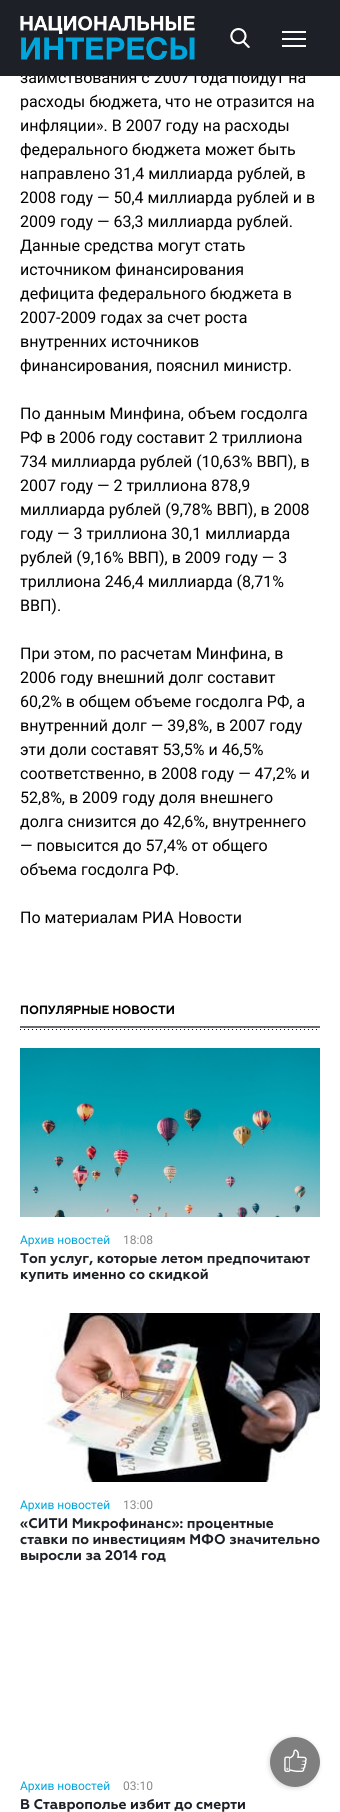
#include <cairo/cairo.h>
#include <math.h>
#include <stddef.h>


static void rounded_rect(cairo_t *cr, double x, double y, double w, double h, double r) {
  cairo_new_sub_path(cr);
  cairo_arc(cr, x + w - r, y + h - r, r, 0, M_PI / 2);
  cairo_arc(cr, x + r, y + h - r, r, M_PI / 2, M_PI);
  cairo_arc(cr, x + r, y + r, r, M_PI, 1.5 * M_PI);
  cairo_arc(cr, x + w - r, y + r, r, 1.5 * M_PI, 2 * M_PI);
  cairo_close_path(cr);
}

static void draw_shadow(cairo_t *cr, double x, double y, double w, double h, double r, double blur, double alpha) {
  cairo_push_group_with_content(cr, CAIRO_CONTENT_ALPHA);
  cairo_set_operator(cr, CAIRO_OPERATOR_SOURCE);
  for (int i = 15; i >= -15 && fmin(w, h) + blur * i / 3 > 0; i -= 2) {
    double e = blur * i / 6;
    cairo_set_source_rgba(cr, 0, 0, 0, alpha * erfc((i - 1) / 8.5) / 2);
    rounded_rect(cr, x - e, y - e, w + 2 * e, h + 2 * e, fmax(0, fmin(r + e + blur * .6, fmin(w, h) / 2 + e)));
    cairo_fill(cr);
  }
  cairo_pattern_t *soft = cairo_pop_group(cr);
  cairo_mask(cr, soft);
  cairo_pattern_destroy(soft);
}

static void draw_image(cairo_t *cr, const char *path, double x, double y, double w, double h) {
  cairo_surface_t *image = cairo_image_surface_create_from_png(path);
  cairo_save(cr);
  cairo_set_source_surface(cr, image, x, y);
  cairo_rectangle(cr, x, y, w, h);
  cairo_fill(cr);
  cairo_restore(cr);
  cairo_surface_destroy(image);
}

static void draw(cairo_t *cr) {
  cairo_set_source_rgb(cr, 1, 1, 1);
  cairo_paint(cr);
  cairo_set_source_rgb(cr, 105 / 255.0, 106 / 255.0, 111 / 255.0);
  cairo_rectangle(cr, 20, 1026, 300, 2);
  cairo_fill(cr);
  draw_image(cr, "images/3.png", 20, 1029, 297, 1);
  draw_image(cr, "images/4.png", 20, 1048, 300, 169);
  draw_image(cr, "images/5.png", 42, 1313, 278, 169);
  cairo_save(cr);
  cairo_set_fill_rule(cr, CAIRO_FILL_RULE_EVEN_ODD);
  cairo_new_path(cr);
  cairo_move_to(cr, 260, 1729);
  cairo_line_to(cr, 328, 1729);
  cairo_line_to(cr, 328, 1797);
  cairo_line_to(cr, 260, 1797);
  cairo_close_path(cr);
  cairo_move_to(cr, 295, 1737);
  cairo_curve_to(cr, 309, 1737, 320, 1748, 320, 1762);
  cairo_curve_to(cr, 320, 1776, 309, 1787, 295, 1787);
  cairo_curve_to(cr, 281, 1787, 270, 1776, 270, 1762);
  cairo_curve_to(cr, 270, 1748, 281, 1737, 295, 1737);
  cairo_close_path(cr);
  cairo_clip(cr);
  cairo_set_source_rgb(cr, 0, 0, 0);
  draw_shadow(cr, 269, 1738, 50, 50, 25, 2.5, 0.15);
  cairo_restore(cr);
  cairo_set_source_rgba(cr, 0, 0, 0, 0.5);
  cairo_arc(cr, 295, 1762, 25, 0, 2 * M_PI);
  cairo_fill(cr);
  draw_image(cr, "images/6.png", 284, 1749, 23, 23);
  cairo_select_font_face(cr, "Roboto", CAIRO_FONT_SLANT_NORMAL, CAIRO_FONT_WEIGHT_NORMAL);
  cairo_set_font_size(cr, 16);
  cairo_set_source_rgb(cr, 0, 0, 0);
  cairo_move_to(cr, 20, 83);
  cairo_show_text(cr, "заимствования с 2007 года пойдут на");
  cairo_set_source_rgb(cr, 30 / 255.0, 32 / 255.0, 39 / 255.0);
  cairo_rectangle(cr, 0, 0, 340, 76);
  cairo_fill(cr);
  cairo_set_source_rgb(cr, 1, 1, 1);
  cairo_rectangle(cr, 282, 45, 24, 2);
  cairo_fill(cr);
  cairo_rectangle(cr, 282, 38, 24, 2);
  cairo_fill(cr);
  cairo_rectangle(cr, 282, 31, 24, 2);
  cairo_fill(cr);
  draw_image(cr, "images/2.png", 230, 28, 20, 20);
  draw_image(cr, "images/1.png", 20, 16, 175, 44);
  cairo_set_source_rgb(cr, 0, 0, 0);
  cairo_move_to(cr, 20, 107);
  cairo_show_text(cr, "расходы бюджета, что не отразится на");
  cairo_move_to(cr, 20, 131);
  cairo_show_text(cr, "инфляции». В 2007 году на расходы");
  cairo_move_to(cr, 20, 155);
  cairo_show_text(cr, "федерального бюджета может быть");
  cairo_move_to(cr, 20, 179);
  cairo_show_text(cr, "направлено 31,4 миллиарда рублей, в");
  cairo_move_to(cr, 20, 203);
  cairo_show_text(cr, "2008 году — 50,4 миллиарда рублей и в");
  cairo_move_to(cr, 20, 227);
  cairo_show_text(cr, "2009 году — 63,3 миллиарда рублей.");
  cairo_move_to(cr, 20, 251);
  cairo_show_text(cr, "Данные средства могут стать");
  cairo_move_to(cr, 20, 275);
  cairo_show_text(cr, "источником финансирования");
  cairo_move_to(cr, 20, 299);
  cairo_show_text(cr, "дефицита федерального бюджета в");
  cairo_move_to(cr, 20, 323);
  cairo_show_text(cr, "2007-2009 годах за счет роста");
  cairo_move_to(cr, 20, 347);
  cairo_show_text(cr, "внутренних источников");
  cairo_move_to(cr, 20, 371);
  cairo_show_text(cr, "финансирования, пояснил министр.");
  cairo_move_to(cr, 20, 419);
  cairo_show_text(cr, "По данным Минфина, объем госдолга");
  cairo_move_to(cr, 20, 443);
  cairo_show_text(cr, "РФ в 2006 году составит 2 триллиона");
  cairo_move_to(cr, 20, 467);
  cairo_show_text(cr, "734 миллиарда рублей (10,63% ВВП), в");
  cairo_move_to(cr, 20, 491);
  cairo_show_text(cr, "2007 году — 2 триллиона 878,9");
  cairo_move_to(cr, 20, 515);
  cairo_show_text(cr, "миллиарда рублей (9,78% ВВП), в 2008");
  cairo_move_to(cr, 20, 539);
  cairo_show_text(cr, "году — 3 триллиона 30,1 миллиарда");
  cairo_move_to(cr, 20, 563);
  cairo_show_text(cr, "рублей (9,16% ВВП), в 2009 году — 3");
  cairo_move_to(cr, 20, 587);
  cairo_show_text(cr, "триллиона 246,4 миллиарда (8,71%");
  cairo_move_to(cr, 20, 611);
  cairo_show_text(cr, "ВВП).");
  cairo_move_to(cr, 20, 659);
  cairo_show_text(cr, "При этом, по расчетам Минфина, в");
  cairo_move_to(cr, 20, 683);
  cairo_show_text(cr, "2006 году внешний долг составит");
  cairo_move_to(cr, 20, 707);
  cairo_show_text(cr, "60,2% в общем объеме госдолга РФ, а");
  cairo_move_to(cr, 20, 731);
  cairo_show_text(cr, "внутренний долг — 39,8%, в 2007 году");
  cairo_move_to(cr, 20, 755);
  cairo_show_text(cr, "эти доли составят 53,5% и 46,5%");
  cairo_move_to(cr, 20, 779);
  cairo_show_text(cr, "соответственно, в 2008 году — 47,2% и");
  cairo_move_to(cr, 20, 803);
  cairo_show_text(cr, "52,8%, в 2009 году доля внешнего");
  cairo_move_to(cr, 20, 827);
  cairo_show_text(cr, "долга снизится до 42,6%, внутреннего");
  cairo_move_to(cr, 20, 851);
  cairo_show_text(cr, "— повысится до 57,4% от общего");
  cairo_move_to(cr, 20, 875);
  cairo_show_text(cr, "объема госдолга РФ.");
  cairo_move_to(cr, 20, 923);
  cairo_show_text(cr, "По материалам РИА Новости");
  cairo_select_font_face(cr, "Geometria", CAIRO_FONT_SLANT_NORMAL, CAIRO_FONT_WEIGHT_BOLD);
  cairo_set_font_size(cr, 12);
  cairo_move_to(cr, 20, 1014);
  cairo_show_text(cr, "ПОПУЛЯРНЫЕ НОВОСТИ");
  cairo_select_font_face(cr, "Roboto", CAIRO_FONT_SLANT_NORMAL, CAIRO_FONT_WEIGHT_NORMAL);
  cairo_set_source_rgb(cr, 0, 165 / 255.0, 219 / 255.0);
  cairo_move_to(cr, 20, 1244);
  cairo_show_text(cr, "Архив новостей");
  cairo_set_source_rgb(cr, 137 / 255.0, 137 / 255.0, 137 / 255.0);
  cairo_move_to(cr, 123, 1244);
  cairo_show_text(cr, "18:08");
  cairo_select_font_face(cr, "Geometria", CAIRO_FONT_SLANT_NORMAL, CAIRO_FONT_WEIGHT_BOLD);
  cairo_set_font_size(cr, 14);
  cairo_set_source_rgb(cr, 30 / 255.0, 32 / 255.0, 39 / 255.0);
  cairo_move_to(cr, 20, 1263);
  cairo_show_text(cr, "Топ услуг, которые летом предпочитают");
  cairo_move_to(cr, 20, 1279);
  cairo_show_text(cr, "купить именно со скидкой");
  cairo_select_font_face(cr, "Roboto", CAIRO_FONT_SLANT_NORMAL, CAIRO_FONT_WEIGHT_NORMAL);
  cairo_set_font_size(cr, 12);
  cairo_set_source_rgb(cr, 0, 165 / 255.0, 219 / 255.0);
  cairo_move_to(cr, 20, 1509);
  cairo_show_text(cr, "Архив новостей");
  cairo_set_source_rgb(cr, 137 / 255.0, 137 / 255.0, 137 / 255.0);
  cairo_move_to(cr, 123, 1509);
  cairo_show_text(cr, "13:00");
  cairo_select_font_face(cr, "Geometria", CAIRO_FONT_SLANT_NORMAL, CAIRO_FONT_WEIGHT_BOLD);
  cairo_set_font_size(cr, 14);
  cairo_set_source_rgb(cr, 30 / 255.0, 32 / 255.0, 39 / 255.0);
  cairo_move_to(cr, 20, 1528);
  cairo_show_text(cr, "«СИТИ Микрофинанс»: процентные");
  cairo_move_to(cr, 20, 1544);
  cairo_show_text(cr, "ставки по инвестициям МФО значительно");
  cairo_move_to(cr, 20, 1560);
  cairo_show_text(cr, "выросли за 2014 год");
  cairo_select_font_face(cr, "Roboto", CAIRO_FONT_SLANT_NORMAL, CAIRO_FONT_WEIGHT_NORMAL);
  cairo_set_font_size(cr, 12);
  cairo_set_source_rgb(cr, 0, 165 / 255.0, 219 / 255.0);
  cairo_move_to(cr, 20, 1790);
  cairo_show_text(cr, "Архив новостей");
  cairo_set_source_rgb(cr, 137 / 255.0, 137 / 255.0, 137 / 255.0);
  cairo_move_to(cr, 123, 1790);
  cairo_show_text(cr, "03:10");
  cairo_select_font_face(cr, "Geometria", CAIRO_FONT_SLANT_NORMAL, CAIRO_FONT_WEIGHT_BOLD);
  cairo_set_font_size(cr, 14);
  cairo_set_source_rgb(cr, 30 / 255.0, 32 / 255.0, 39 / 255.0);
  cairo_move_to(cr, 20, 1809);
  cairo_show_text(cr, "В Ставрополье избит до смерти");
}

int main(void) {
  cairo_surface_t *surface = cairo_image_surface_create(CAIRO_FORMAT_RGB24, 340, 1812);
  cairo_t *cr = cairo_create(surface);
  cairo_font_options_t *options = cairo_font_options_create();
  cairo_font_options_set_hint_metrics(options, CAIRO_HINT_METRICS_OFF);
  cairo_font_options_set_hint_style(options, CAIRO_HINT_STYLE_NONE);
  cairo_set_font_options(cr, options);
  cairo_set_miter_limit(cr, 4);
  draw(cr);
  cairo_surface_write_to_png(surface, "out.png");
  cairo_font_options_destroy(options);
  cairo_destroy(cr);
  cairo_surface_destroy(surface);
  return 0;
}
